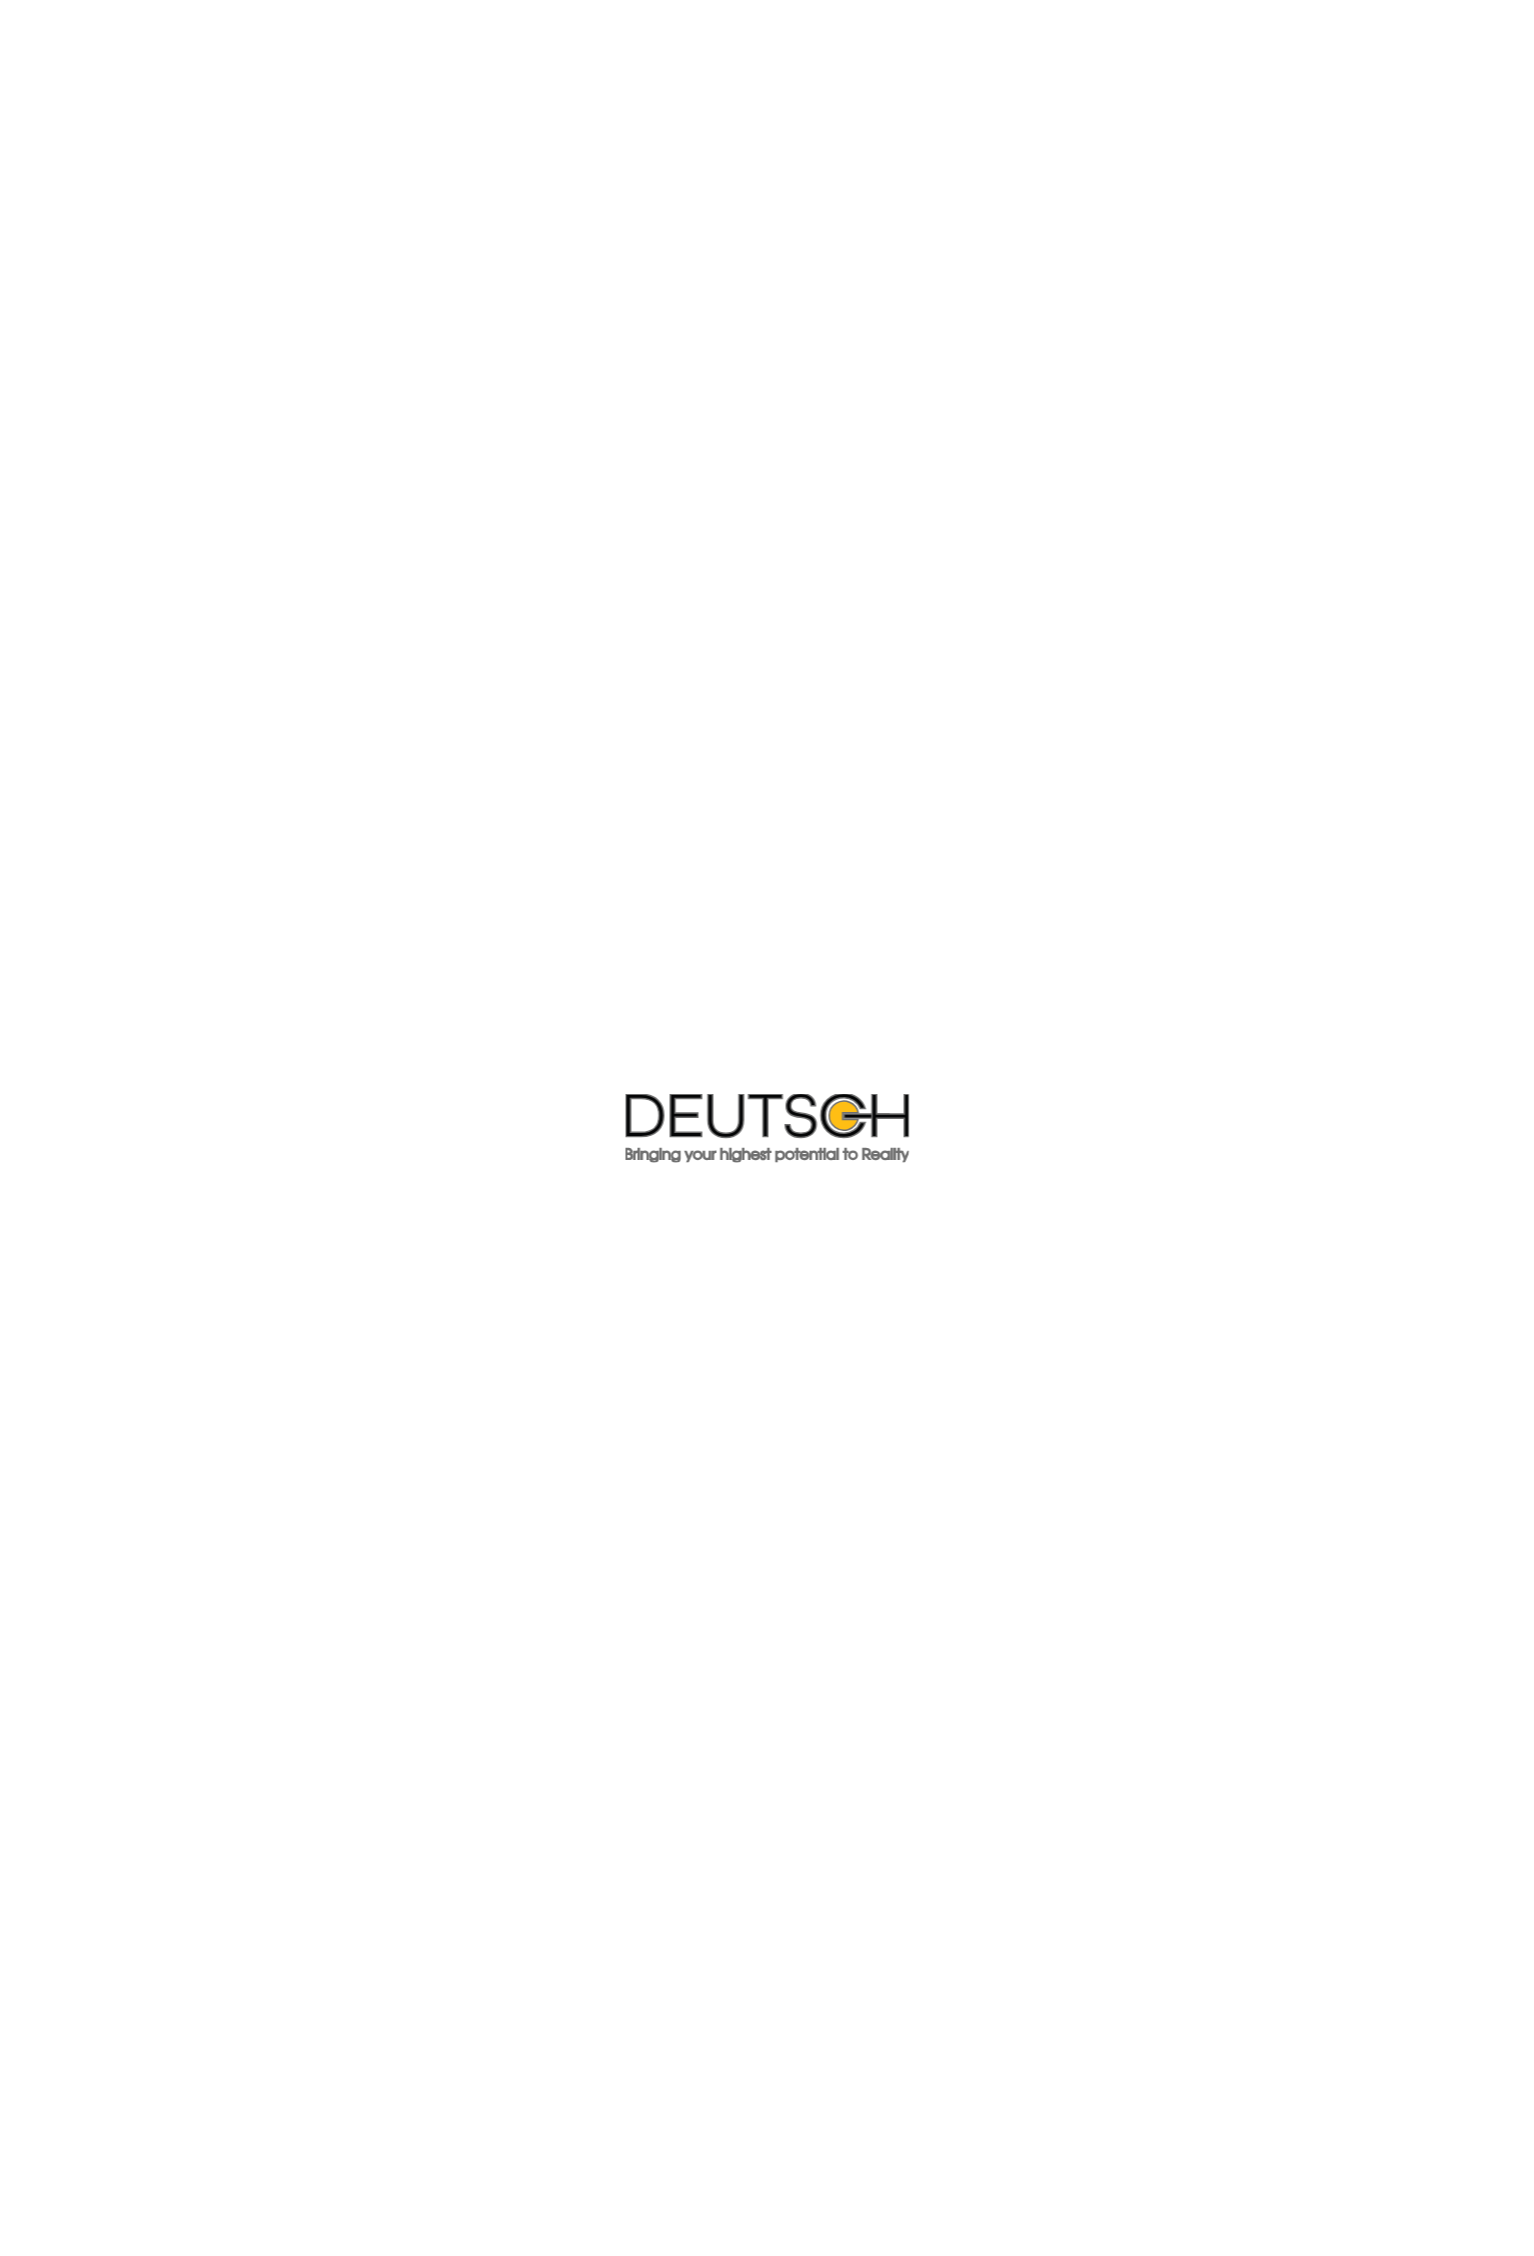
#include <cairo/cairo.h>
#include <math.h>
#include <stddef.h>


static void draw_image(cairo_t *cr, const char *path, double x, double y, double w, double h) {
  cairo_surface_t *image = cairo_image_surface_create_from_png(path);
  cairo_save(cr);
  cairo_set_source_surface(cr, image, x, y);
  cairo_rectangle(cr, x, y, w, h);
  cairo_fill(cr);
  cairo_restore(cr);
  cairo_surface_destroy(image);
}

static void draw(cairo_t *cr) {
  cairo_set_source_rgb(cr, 1, 1, 1);
  cairo_paint(cr);
  draw_image(cr, "images/1.png", 625, 1094, 285, 69);
}

int main(void) {
  cairo_surface_t *surface = cairo_image_surface_create(CAIRO_FORMAT_RGB24, 1534, 2256);
  cairo_t *cr = cairo_create(surface);
  cairo_font_options_t *options = cairo_font_options_create();
  cairo_font_options_set_hint_metrics(options, CAIRO_HINT_METRICS_OFF);
  cairo_font_options_set_hint_style(options, CAIRO_HINT_STYLE_NONE);
  cairo_set_font_options(cr, options);
  cairo_set_miter_limit(cr, 4);
  draw(cr);
  cairo_surface_write_to_png(surface, "out.png");
  cairo_font_options_destroy(options);
  cairo_destroy(cr);
  cairo_surface_destroy(surface);
  return 0;
}
